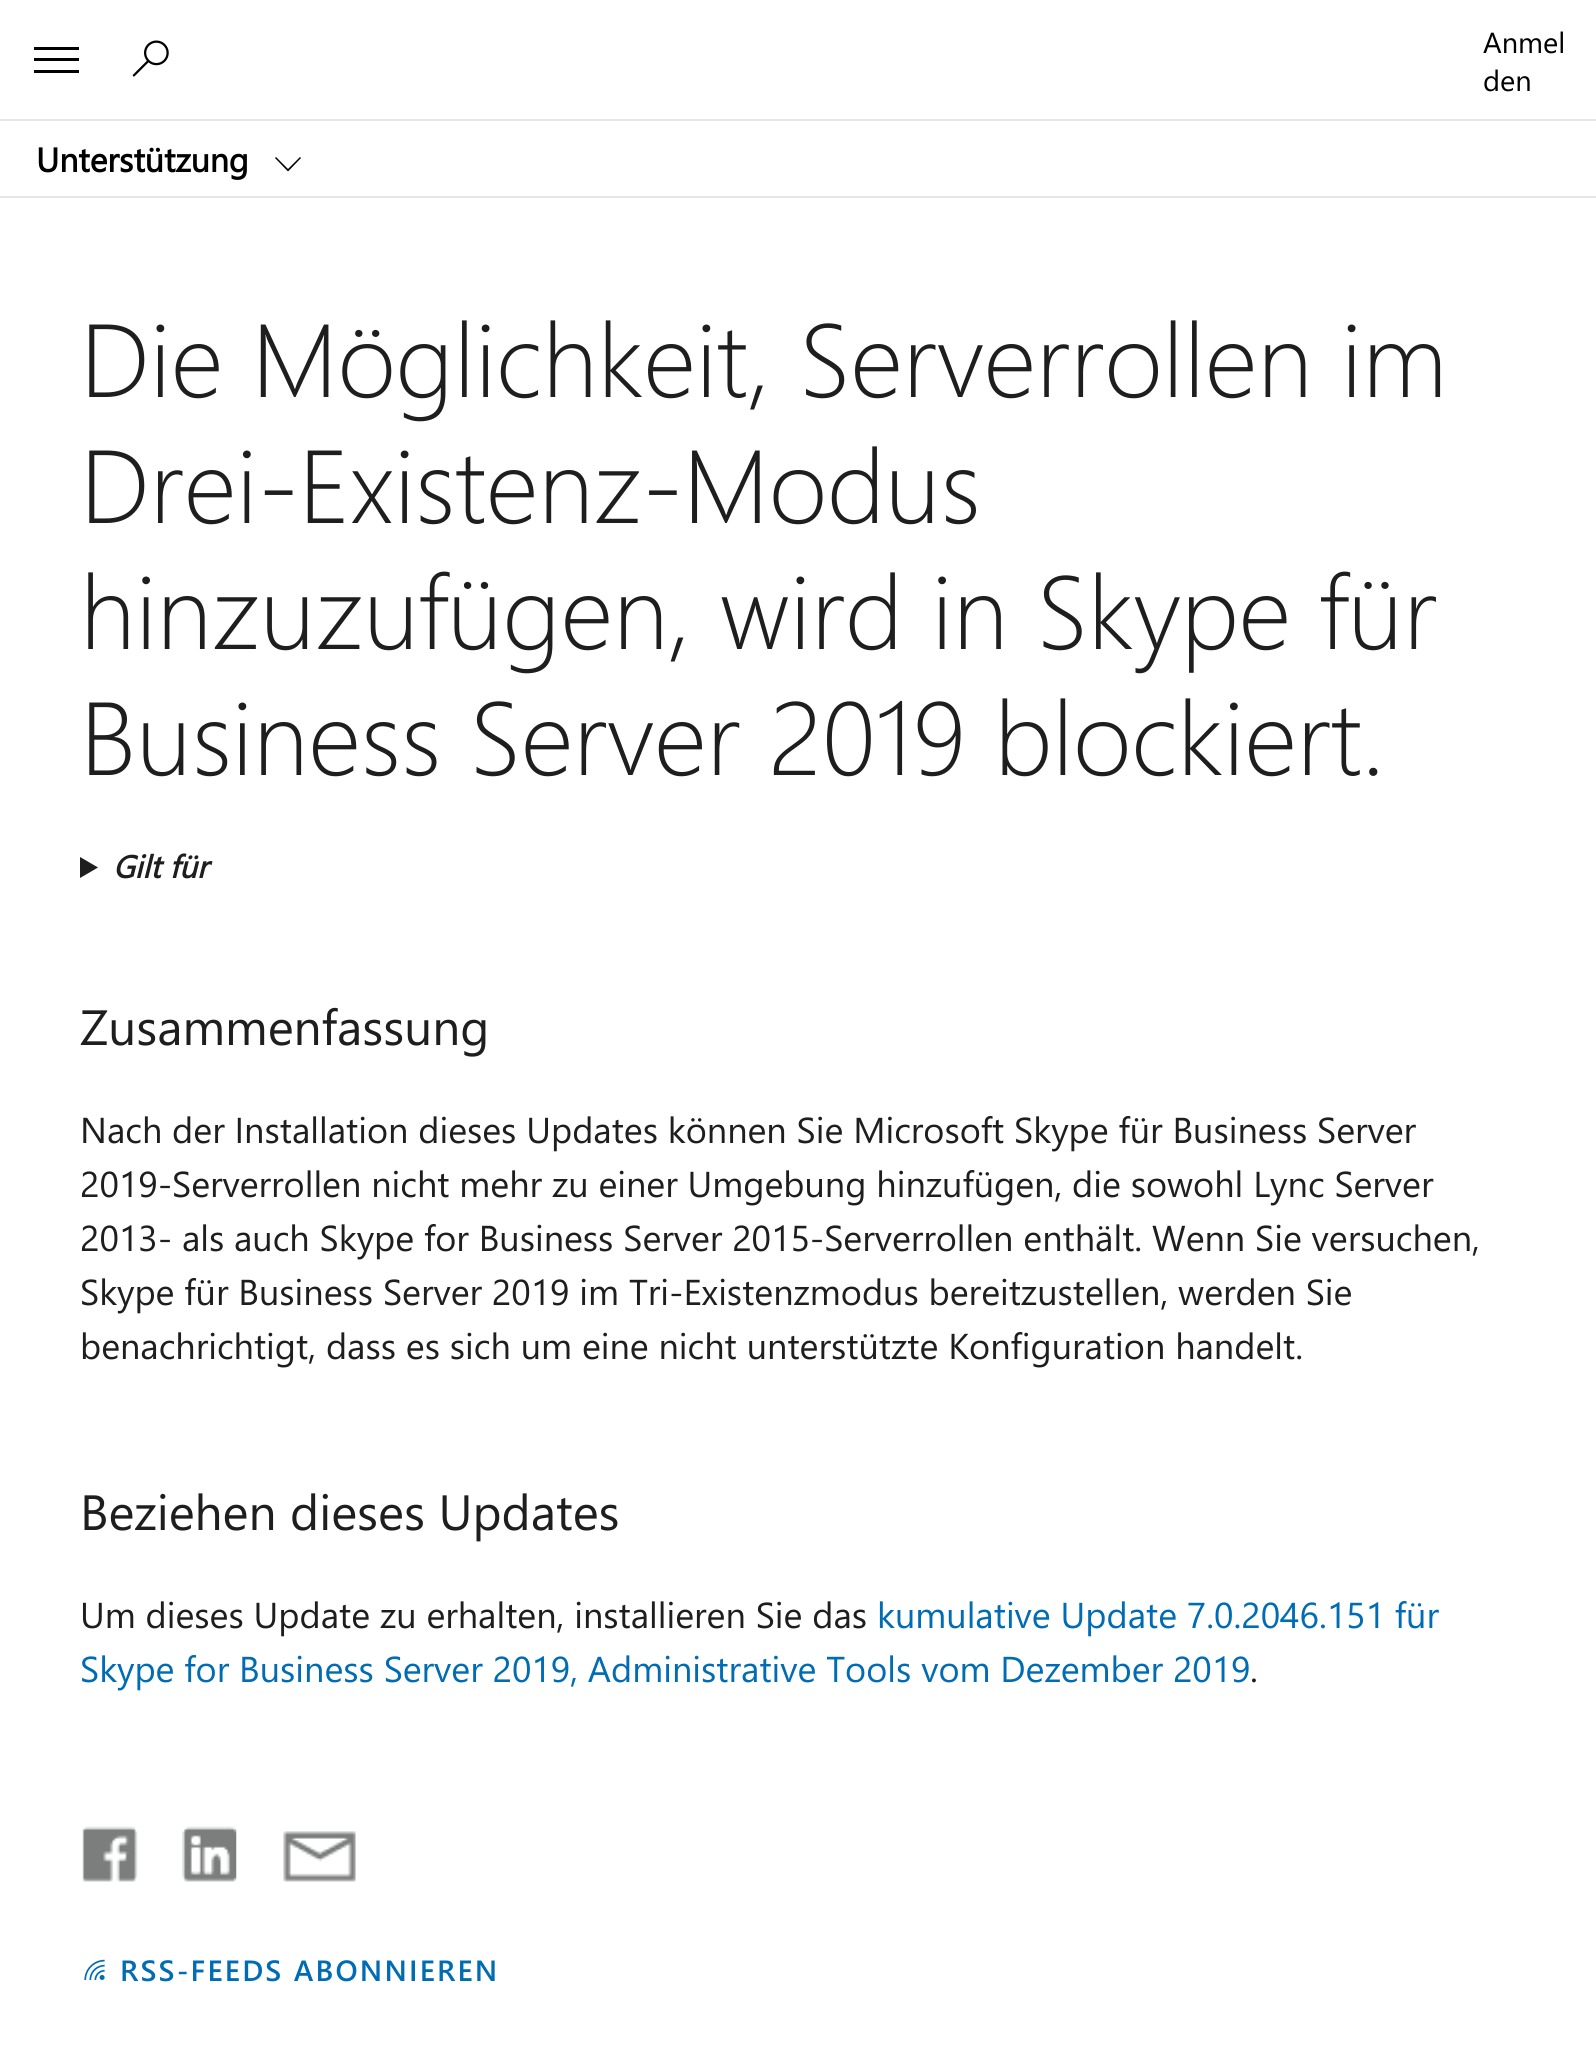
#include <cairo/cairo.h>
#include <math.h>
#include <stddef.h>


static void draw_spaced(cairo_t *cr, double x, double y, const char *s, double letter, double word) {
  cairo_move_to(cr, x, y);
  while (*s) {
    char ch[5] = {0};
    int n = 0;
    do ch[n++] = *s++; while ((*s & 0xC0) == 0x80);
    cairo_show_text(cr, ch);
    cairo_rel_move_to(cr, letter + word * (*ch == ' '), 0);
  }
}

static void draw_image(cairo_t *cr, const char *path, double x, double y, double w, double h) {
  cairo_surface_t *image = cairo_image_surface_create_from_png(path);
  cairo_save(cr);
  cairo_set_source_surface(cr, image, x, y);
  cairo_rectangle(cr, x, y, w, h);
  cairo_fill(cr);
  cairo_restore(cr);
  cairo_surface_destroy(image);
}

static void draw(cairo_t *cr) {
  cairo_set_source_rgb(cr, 1, 1, 1);
  cairo_paint(cr);
  cairo_set_source_rgb(cr, 230 / 255.0, 230 / 255.0, 230 / 255.0);
  cairo_rectangle(cr, 0, 119, 1596, 2);
  cairo_fill(cr);
  cairo_set_source_rgb(cr, 0, 0, 0);
  cairo_new_path(cr);
  cairo_move_to(cr, 79, 50);
  cairo_line_to(cr, 34, 50);
  cairo_line_to(cr, 34, 47);
  cairo_line_to(cr, 79, 47);
  cairo_close_path(cr);
  cairo_move_to(cr, 79, 73);
  cairo_line_to(cr, 34, 73);
  cairo_line_to(cr, 34, 70);
  cairo_line_to(cr, 79, 70);
  cairo_close_path(cr);
  cairo_move_to(cr, 79, 61);
  cairo_line_to(cr, 34, 61);
  cairo_line_to(cr, 34, 58);
  cairo_line_to(cr, 79, 58);
  cairo_close_path(cr);
  cairo_fill(cr);
  draw_image(cr, "images/1.png", 132, 40, 37, 37);
  cairo_set_source_rgb(cr, 230 / 255.0, 230 / 255.0, 230 / 255.0);
  cairo_rectangle(cr, 0, 196, 1596, 2);
  cairo_fill(cr);
  cairo_set_source_rgb(cr, 0, 0, 0);
  cairo_new_path(cr);
  cairo_move_to(cr, 300, 157);
  cairo_line_to(cr, 301, 158);
  cairo_line_to(cr, 288, 171.5);
  cairo_line_to(cr, 275, 158);
  cairo_line_to(cr, 276, 157);
  cairo_line_to(cr, 288, 169);
  cairo_close_path(cr);
  cairo_fill(cr);
  cairo_set_source_rgb(cr, 30 / 255.0, 30 / 255.0, 30 / 255.0);
  cairo_new_path(cr);
  cairo_move_to(cr, 80, 857);
  cairo_line_to(cr, 98, 867.5);
  cairo_line_to(cr, 80, 878);
  cairo_close_path(cr);
  cairo_fill(cr);
  draw_image(cr, "images/2.png", 82, 1826, 56, 56);
  draw_image(cr, "images/3.png", 182, 1826, 55, 56);
  draw_image(cr, "images/4.png", 283, 1831, 73, 51);
  draw_image(cr, "images/5.png", 84, 1959, 21, 21);
  cairo_select_font_face(cr, "Segoe UI", CAIRO_FONT_SLANT_NORMAL, CAIRO_FONT_WEIGHT_NORMAL);
  cairo_set_font_size(cr, 29);
  cairo_set_source_rgb(cr, 0, 0, 0);
  cairo_move_to(cr, 1483, 53);
  cairo_show_text(cr, "Anmel");
  cairo_move_to(cr, 1483, 91);
  cairo_show_text(cr, "den");
  cairo_select_font_face(cr, "Segoe UI", CAIRO_FONT_SLANT_NORMAL, CAIRO_FONT_WEIGHT_BOLD);
  cairo_set_font_size(cr, 33.75);
  cairo_move_to(cr, 36, 172);
  cairo_show_text(cr, "Unterstützung");
  cairo_select_font_face(cr, "Segoe UI Light", CAIRO_FONT_SLANT_NORMAL, CAIRO_FONT_WEIGHT_NORMAL);
  cairo_set_font_size(cr, 103.5);
  cairo_set_source_rgb(cr, 30 / 255.0, 30 / 255.0, 30 / 255.0);
  cairo_move_to(cr, 80, 397);
  cairo_show_text(cr, "Die Möglichkeit, Serverrollen im");
  cairo_move_to(cr, 80, 523);
  cairo_show_text(cr, "Drei-Existenz-Modus");
  cairo_move_to(cr, 80, 649);
  cairo_show_text(cr, "hinzuzufügen, wird in Skype für");
  cairo_move_to(cr, 80, 775);
  cairo_show_text(cr, "Business Server 2019 blockiert.");
  cairo_select_font_face(cr, "Segoe UI", CAIRO_FONT_SLANT_ITALIC, CAIRO_FONT_WEIGHT_BOLD);
  cairo_set_font_size(cr, 31.5);
  cairo_move_to(cr, 113, 878);
  cairo_show_text(cr, "Gilt für");
  cairo_select_font_face(cr, "Segoe UI", CAIRO_FONT_SLANT_NORMAL, CAIRO_FONT_WEIGHT_NORMAL);
  cairo_set_font_size(cr, 49.5);
  cairo_move_to(cr, 80, 1045);
  cairo_show_text(cr, "Zusammenfassung");
  cairo_set_font_size(cr, 36);
  cairo_move_to(cr, 80, 1143);
  cairo_show_text(cr, "Nach der Installation dieses Updates können Sie Microsoft Skype für Business Server");
  cairo_move_to(cr, 80, 1197);
  cairo_show_text(cr, "2019-Serverrollen nicht mehr zu einer Umgebung hinzufügen, die sowohl Lync Server");
  cairo_move_to(cr, 80, 1251);
  cairo_show_text(cr, "2013- als auch Skype for Business Server 2015-Serverrollen enthält. Wenn Sie versuchen,");
  cairo_move_to(cr, 80, 1305);
  cairo_show_text(cr, "Skype für Business Server 2019 im Tri-Existenzmodus bereitzustellen, werden Sie");
  cairo_move_to(cr, 80, 1359);
  cairo_show_text(cr, "benachrichtigt, dass es sich um eine nicht unterstützte Konfiguration handelt.");
  cairo_set_font_size(cr, 49.5);
  cairo_move_to(cr, 80, 1530);
  cairo_show_text(cr, "Beziehen dieses Updates");
  cairo_set_font_size(cr, 36);
  cairo_move_to(cr, 80, 1628);
  cairo_show_text(cr, "Um dieses Update zu erhalten, installieren Sie das");
  cairo_set_source_rgb(cr, 0, 108 / 255.0, 180 / 255.0);
  cairo_move_to(cr, 877, 1628);
  cairo_show_text(cr, "kumulative Update 7.0.2046.151 für");
  cairo_move_to(cr, 80, 1682);
  cairo_show_text(cr, "Skype for Business Server 2019, Administrative Tools vom Dezember 2019");
  cairo_set_source_rgb(cr, 30 / 255.0, 30 / 255.0, 30 / 255.0);
  cairo_move_to(cr, 1250, 1682);
  cairo_show_text(cr, ".");
  cairo_select_font_face(cr, "Segoe UI SemiBold", CAIRO_FONT_SLANT_NORMAL, CAIRO_FONT_WEIGHT_NORMAL);
  cairo_set_font_size(cr, 29.25);
  cairo_set_source_rgb(cr, 0, 108 / 255.0, 180 / 255.0);
  draw_spaced(cr, 120, 1981, "RSS-FEEDS ABONNIEREN", 2.2, 0);
}

int main(void) {
  cairo_surface_t *surface = cairo_image_surface_create(CAIRO_FORMAT_RGB24, 1596, 2050);
  cairo_t *cr = cairo_create(surface);
  cairo_font_options_t *options = cairo_font_options_create();
  cairo_font_options_set_hint_metrics(options, CAIRO_HINT_METRICS_OFF);
  cairo_font_options_set_hint_style(options, CAIRO_HINT_STYLE_NONE);
  cairo_set_font_options(cr, options);
  cairo_set_miter_limit(cr, 4);
  draw(cr);
  cairo_surface_write_to_png(surface, "out.png");
  cairo_font_options_destroy(options);
  cairo_destroy(cr);
  cairo_surface_destroy(surface);
  return 0;
}
